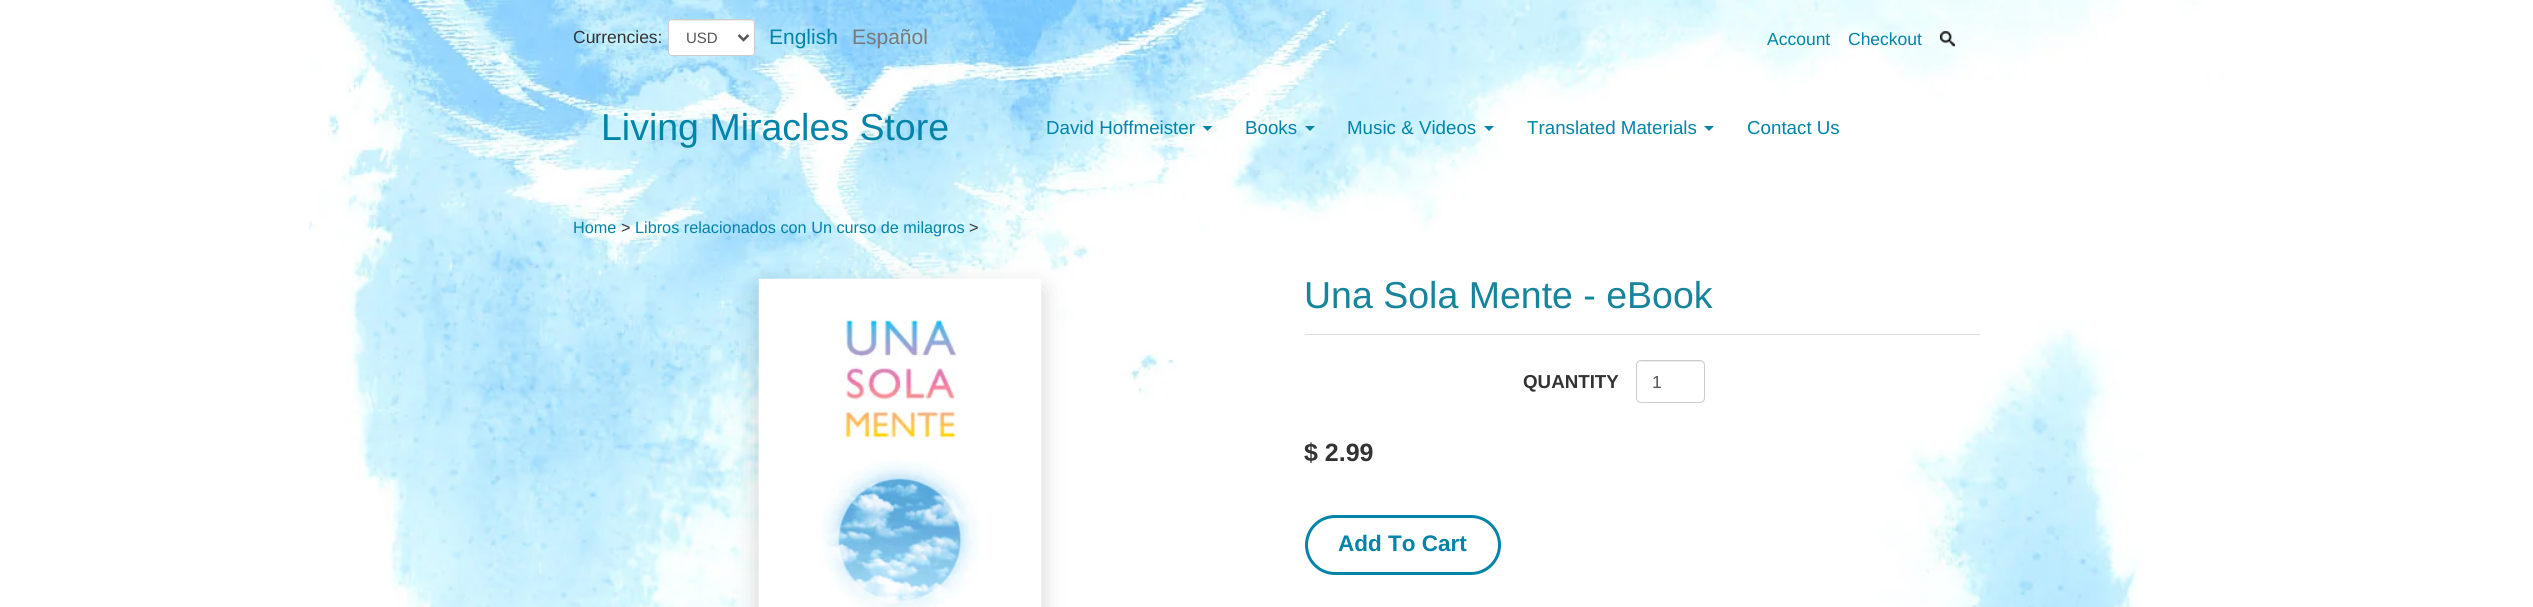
#include <cairo/cairo.h>
#include <math.h>
#include <stddef.h>


static void rounded_rect(cairo_t *cr, double x, double y, double w, double h, double r) {
  cairo_new_sub_path(cr);
  cairo_arc(cr, x + w - r, y + h - r, r, 0, M_PI / 2);
  cairo_arc(cr, x + r, y + h - r, r, M_PI / 2, M_PI);
  cairo_arc(cr, x + r, y + r, r, M_PI, 1.5 * M_PI);
  cairo_arc(cr, x + w - r, y + r, r, 1.5 * M_PI, 2 * M_PI);
  cairo_close_path(cr);
}

static void draw_shadow(cairo_t *cr, double x, double y, double w, double h, double r, double blur, double alpha) {
  cairo_push_group_with_content(cr, CAIRO_CONTENT_ALPHA);
  cairo_set_operator(cr, CAIRO_OPERATOR_SOURCE);
  for (int i = 15; i >= -15 && fmin(w, h) + blur * i / 3 > 0; i -= 2) {
    double e = blur * i / 6;
    cairo_set_source_rgba(cr, 0, 0, 0, alpha * erfc((i - 1) / 8.5) / 2);
    rounded_rect(cr, x - e, y - e, w + 2 * e, h + 2 * e, fmax(0, fmin(r + e + blur * .6, fmin(w, h) / 2 + e)));
    cairo_fill(cr);
  }
  cairo_pattern_t *soft = cairo_pop_group(cr);
  cairo_mask(cr, soft);
  cairo_pattern_destroy(soft);
}

static void draw_image(cairo_t *cr, const char *path, double x, double y, double w, double h) {
  cairo_surface_t *image = cairo_image_surface_create_from_png(path);
  cairo_save(cr);
  cairo_set_source_surface(cr, image, x, y);
  cairo_rectangle(cr, x, y, w, h);
  cairo_fill(cr);
  cairo_restore(cr);
  cairo_surface_destroy(image);
}

static void draw(cairo_t *cr) {
  cairo_set_source_rgb(cr, 1, 1, 1);
  cairo_paint(cr);
  draw_image(cr, "images/1.png", 308, 0, 1903, 607);
  cairo_set_source_rgb(cr, 1, 1, 1);
  rounded_rect(cr, 668, 19, 87, 37, 4);
  cairo_fill(cr);
  cairo_set_source_rgb(cr, 236 / 255.0, 236 / 255.0, 236 / 255.0);
  cairo_new_path(cr);
  cairo_move_to(cr, 671, 21);
  cairo_line_to(cr, 751, 21);
  cairo_curve_to(cr, 753, 21, 754, 22, 754, 24);
  cairo_curve_to(cr, 754, 16, 744, 20, 738, 20);
  cairo_line_to(cr, 685, 20);
  cairo_curve_to(cr, 679, 20, 669, 16, 669, 24);
  cairo_curve_to(cr, 669, 22, 670, 21, 671, 21);
  cairo_close_path(cr);
  cairo_fill(cr);
  rounded_rect(cr, 668.5, 19.5, 86, 36, 3.5);
  cairo_set_source_rgb(cr, 204 / 255.0, 204 / 255.0, 204 / 255.0);
  cairo_set_line_width(cr, 1);
  cairo_stroke(cr);
  cairo_new_path(cr);
  cairo_move_to(cr, 738.5, 35);
  cairo_line_to(cr, 743.5, 40);
  cairo_line_to(cr, 748.5, 35);
  cairo_set_source_rgb(cr, 85 / 255.0, 85 / 255.0, 85 / 255.0);
  cairo_set_line_width(cr, 2.5);
  cairo_stroke(cr);
  draw_image(cr, "images/2.png", 1940, 31, 15, 16);
  cairo_set_source_rgb(cr, 2 / 255.0, 131 / 255.0, 168 / 255.0);
  cairo_new_path(cr);
  cairo_move_to(cr, 1202.5, 126);
  cairo_line_to(cr, 1212.5, 126);
  cairo_line_to(cr, 1207.5, 131);
  cairo_close_path(cr);
  cairo_fill(cr);
  cairo_new_path(cr);
  cairo_move_to(cr, 1305, 126);
  cairo_line_to(cr, 1315, 126);
  cairo_line_to(cr, 1310, 131);
  cairo_close_path(cr);
  cairo_fill(cr);
  cairo_new_path(cr);
  cairo_move_to(cr, 1484, 126);
  cairo_line_to(cr, 1494, 126);
  cairo_line_to(cr, 1489, 131);
  cairo_close_path(cr);
  cairo_fill(cr);
  cairo_new_path(cr);
  cairo_move_to(cr, 1704, 126);
  cairo_line_to(cr, 1714, 126);
  cairo_line_to(cr, 1709, 131);
  cairo_close_path(cr);
  cairo_fill(cr);
  cairo_set_source_rgb(cr, 0, 0, 0);
  draw_shadow(cr, 761, 291, 278, 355, 0, 13, 0.22);
  draw_image(cr, "images/3.png", 758, 278, 284, 329);
  cairo_set_source_rgb(cr, 221 / 255.0, 221 / 255.0, 221 / 255.0);
  cairo_rectangle(cr, 1305, 334, 675, 1);
  cairo_fill(cr);
  cairo_set_source_rgb(cr, 236 / 255.0, 236 / 255.0, 236 / 255.0);
  cairo_new_path(cr);
  cairo_move_to(cr, 1641, 362);
  cairo_line_to(cr, 1700, 362);
  cairo_curve_to(cr, 1702, 362, 1704, 364, 1704, 366);
  cairo_curve_to(cr, 1704, 359, 1695, 361, 1690, 361);
  cairo_line_to(cr, 1652, 361);
  cairo_curve_to(cr, 1647, 361, 1638, 359, 1638, 366);
  cairo_curve_to(cr, 1638, 364, 1639, 362, 1641, 362);
  cairo_close_path(cr);
  cairo_fill(cr);
  rounded_rect(cr, 1636.5, 360.5, 68, 42, 4.5);
  cairo_set_source_rgb(cr, 204 / 255.0, 204 / 255.0, 204 / 255.0);
  cairo_set_line_width(cr, 1);
  cairo_stroke(cr);
  rounded_rect(cr, 1306.5, 516.5, 193, 57, 28.5);
  cairo_set_source_rgb(cr, 2 / 255.0, 131 / 255.0, 168 / 255.0);
  cairo_set_line_width(cr, 3);
  cairo_stroke(cr);
  cairo_select_font_face(cr, "Liberation Sans", CAIRO_FONT_SLANT_NORMAL, CAIRO_FONT_WEIGHT_NORMAL);
  cairo_set_font_size(cr, 17.5);
  cairo_set_source_rgb(cr, 51 / 255.0, 51 / 255.0, 51 / 255.0);
  cairo_move_to(cr, 573, 43);
  cairo_show_text(cr, "Currencies:");
  cairo_set_font_size(cr, 15);
  cairo_set_source_rgb(cr, 85 / 255.0, 85 / 255.0, 85 / 255.0);
  cairo_move_to(cr, 686, 43);
  cairo_show_text(cr, "USD");
  cairo_set_font_size(cr, 21);
  cairo_set_source_rgb(cr, 2 / 255.0, 131 / 255.0, 168 / 255.0);
  cairo_move_to(cr, 769, 44);
  cairo_show_text(cr, "English");
  cairo_set_source_rgb(cr, 121 / 255.0, 121 / 255.0, 121 / 255.0);
  cairo_move_to(cr, 852, 44);
  cairo_show_text(cr, "Español");
  cairo_set_font_size(cr, 17.5);
  cairo_set_source_rgb(cr, 2 / 255.0, 131 / 255.0, 168 / 255.0);
  cairo_move_to(cr, 1767, 45);
  cairo_show_text(cr, "Account");
  cairo_move_to(cr, 1848, 45);
  cairo_show_text(cr, "Checkout");
  cairo_set_font_size(cr, 37.5);
  cairo_move_to(cr, 601, 140);
  cairo_show_text(cr, "Living Miracles Store");
  cairo_set_font_size(cr, 18.75);
  cairo_move_to(cr, 1046, 134);
  cairo_show_text(cr, "David Hoffmeister");
  cairo_move_to(cr, 1245, 134);
  cairo_show_text(cr, "Books");
  cairo_move_to(cr, 1347, 134);
  cairo_show_text(cr, "Music & Videos");
  cairo_move_to(cr, 1527, 134);
  cairo_show_text(cr, "Translated Materials");
  cairo_move_to(cr, 1747, 134);
  cairo_show_text(cr, "Contact Us");
  cairo_set_font_size(cr, 16.25);
  cairo_move_to(cr, 573, 233);
  cairo_show_text(cr, "Home");
  cairo_set_source_rgb(cr, 51 / 255.0, 51 / 255.0, 51 / 255.0);
  cairo_move_to(cr, 621, 233);
  cairo_show_text(cr, ">");
  cairo_set_source_rgb(cr, 2 / 255.0, 131 / 255.0, 168 / 255.0);
  cairo_move_to(cr, 635, 233);
  cairo_show_text(cr, "Libros relacionados con Un curso de milagros");
  cairo_set_source_rgb(cr, 51 / 255.0, 51 / 255.0, 51 / 255.0);
  cairo_move_to(cr, 969, 233);
  cairo_show_text(cr, ">");
  cairo_set_font_size(cr, 37.5);
  cairo_set_source_rgb(cr, 23 / 255.0, 132 / 255.0, 156 / 255.0);
  cairo_move_to(cr, 1304, 308);
  cairo_show_text(cr, "Una Sola Mente - eBook");
  cairo_select_font_face(cr, "Liberation Sans", CAIRO_FONT_SLANT_NORMAL, CAIRO_FONT_WEIGHT_BOLD);
  cairo_set_font_size(cr, 18.75);
  cairo_set_source_rgb(cr, 51 / 255.0, 51 / 255.0, 51 / 255.0);
  cairo_move_to(cr, 1523, 388);
  cairo_show_text(cr, "QUANTITY");
  cairo_select_font_face(cr, "Liberation Sans", CAIRO_FONT_SLANT_NORMAL, CAIRO_FONT_WEIGHT_NORMAL);
  cairo_set_font_size(cr, 17.5);
  cairo_set_source_rgb(cr, 85 / 255.0, 85 / 255.0, 85 / 255.0);
  cairo_move_to(cr, 1652, 388);
  cairo_show_text(cr, "1");
  cairo_select_font_face(cr, "Liberation Sans", CAIRO_FONT_SLANT_NORMAL, CAIRO_FONT_WEIGHT_BOLD);
  cairo_set_font_size(cr, 25);
  cairo_set_source_rgb(cr, 51 / 255.0, 51 / 255.0, 51 / 255.0);
  cairo_move_to(cr, 1304, 461);
  cairo_show_text(cr, "$ 2.99");
  cairo_set_font_size(cr, 22.5);
  cairo_set_source_rgb(cr, 2 / 255.0, 131 / 255.0, 168 / 255.0);
  cairo_move_to(cr, 1338, 551);
  cairo_show_text(cr, "Add To Cart");
}

int main(void) {
  cairo_surface_t *surface = cairo_image_surface_create(CAIRO_FORMAT_RGB24, 2533, 607);
  cairo_t *cr = cairo_create(surface);
  cairo_font_options_t *options = cairo_font_options_create();
  cairo_font_options_set_hint_metrics(options, CAIRO_HINT_METRICS_OFF);
  cairo_font_options_set_hint_style(options, CAIRO_HINT_STYLE_NONE);
  cairo_set_font_options(cr, options);
  cairo_set_miter_limit(cr, 4);
  draw(cr);
  cairo_surface_write_to_png(surface, "out.png");
  cairo_font_options_destroy(options);
  cairo_destroy(cr);
  cairo_surface_destroy(surface);
  return 0;
}
